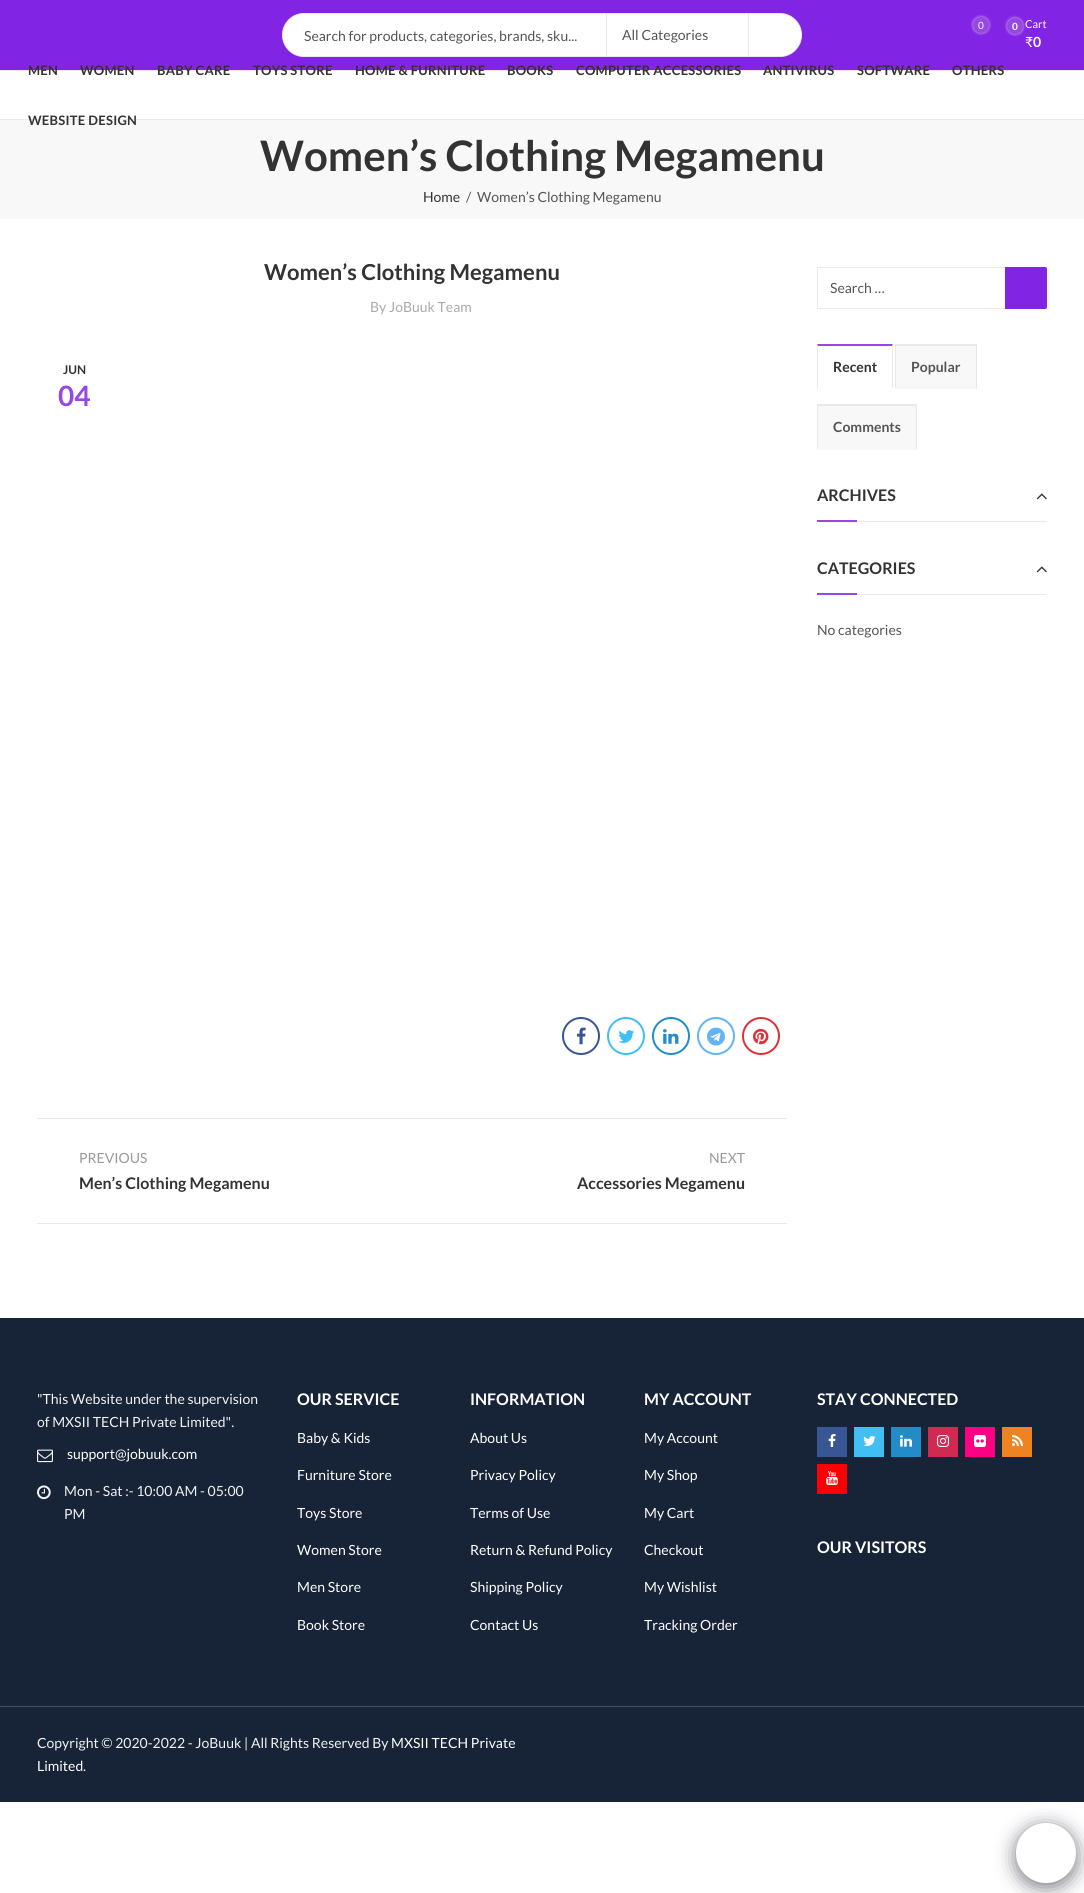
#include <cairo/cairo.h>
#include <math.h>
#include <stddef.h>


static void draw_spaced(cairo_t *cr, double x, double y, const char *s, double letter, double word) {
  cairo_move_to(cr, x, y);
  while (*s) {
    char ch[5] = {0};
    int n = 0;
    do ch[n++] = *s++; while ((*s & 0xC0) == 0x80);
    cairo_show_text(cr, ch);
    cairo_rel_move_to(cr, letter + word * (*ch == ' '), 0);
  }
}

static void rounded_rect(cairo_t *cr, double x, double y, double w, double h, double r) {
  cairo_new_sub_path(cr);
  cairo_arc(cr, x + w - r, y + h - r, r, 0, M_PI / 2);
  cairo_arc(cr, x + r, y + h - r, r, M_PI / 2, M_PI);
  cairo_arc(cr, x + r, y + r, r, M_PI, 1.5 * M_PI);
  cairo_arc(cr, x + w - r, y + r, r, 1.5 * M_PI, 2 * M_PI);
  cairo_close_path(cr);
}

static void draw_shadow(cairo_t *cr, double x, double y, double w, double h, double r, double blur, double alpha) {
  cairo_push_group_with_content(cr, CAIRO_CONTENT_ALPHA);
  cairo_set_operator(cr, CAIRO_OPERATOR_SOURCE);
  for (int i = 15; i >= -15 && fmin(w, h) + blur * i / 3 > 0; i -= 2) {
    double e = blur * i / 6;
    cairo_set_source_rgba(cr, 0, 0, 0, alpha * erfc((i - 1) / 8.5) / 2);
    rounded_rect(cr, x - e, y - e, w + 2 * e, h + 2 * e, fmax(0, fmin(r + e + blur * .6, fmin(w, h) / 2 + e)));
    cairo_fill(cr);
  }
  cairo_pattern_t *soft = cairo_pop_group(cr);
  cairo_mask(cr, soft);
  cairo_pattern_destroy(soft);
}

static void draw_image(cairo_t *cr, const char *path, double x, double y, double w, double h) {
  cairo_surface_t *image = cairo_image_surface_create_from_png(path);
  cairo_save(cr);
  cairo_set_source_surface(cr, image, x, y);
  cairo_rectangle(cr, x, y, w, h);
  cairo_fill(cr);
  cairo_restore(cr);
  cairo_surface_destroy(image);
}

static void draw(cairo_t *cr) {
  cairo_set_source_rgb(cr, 1, 1, 1);
  cairo_paint(cr);
  cairo_set_source_rgb(cr, 130 / 255.0, 36 / 255.0, 227 / 255.0);
  cairo_rectangle(cr, 0, 0, 1084, 70);
  cairo_fill(cr);
  cairo_set_source_rgb(cr, 1, 1, 1);
  rounded_rect(cr, 282.5, 13.5, 519, 43, 21.5);
  cairo_fill_preserve(cr);
  cairo_set_source_rgb(cr, 233 / 255.0, 233 / 255.0, 233 / 255.0);
  cairo_set_line_width(cr, 1);
  cairo_stroke(cr);
  cairo_set_source_rgb(cr, 1, 1, 1);
  cairo_new_path(cr);
  cairo_move_to(cr, 304, 14);
  cairo_line_to(cr, 607, 14);
  cairo_line_to(cr, 607, 56);
  cairo_line_to(cr, 304, 56);
  cairo_curve_to(cr, 292.5, 56, 283, 46.5, 283, 35);
  cairo_curve_to(cr, 283, 23.5, 292.5, 14, 304, 14);
  cairo_close_path(cr);
  cairo_fill(cr);
  cairo_set_source_rgb(cr, 233 / 255.0, 233 / 255.0, 233 / 255.0);
  cairo_rectangle(cr, 606, 14, 1, 42);
  cairo_fill(cr);
  cairo_rectangle(cr, 748, 14, 1, 42);
  cairo_fill(cr);
  cairo_set_source_rgb(cr, 1, 1, 1);
  draw_shadow(cr, 973, 17, 16, 16, 8, 1.5, 0.7);
  cairo_set_source_rgb(cr, 149 / 255.0, 72 / 255.0, 226 / 255.0);
  cairo_arc(cr, 981, 25, 8, 0, 2 * M_PI);
  cairo_fill(cr);
  cairo_set_source_rgb(cr, 1, 1, 1);
  draw_shadow(cr, 1007, 18, 16, 16, 8, 1.5, 0.7);
  cairo_set_source_rgb(cr, 149 / 255.0, 72 / 255.0, 226 / 255.0);
  cairo_arc(cr, 1015, 26, 8, 0, 2 * M_PI);
  cairo_fill(cr);
  cairo_set_source_rgb(cr, 233 / 255.0, 233 / 255.0, 233 / 255.0);
  cairo_rectangle(cr, 0, 70, 1084, 1);
  cairo_fill(cr);
  cairo_rectangle(cr, 0, 119, 1084, 1);
  cairo_fill(cr);
  cairo_set_source_rgb(cr, 248 / 255.0, 248 / 255.0, 248 / 255.0);
  cairo_rectangle(cr, 0, 120, 1084, 99);
  cairo_fill(cr);
  cairo_arc(cr, 581, 1036, 18, 0, 2 * M_PI);
  cairo_set_source_rgb(cr, 56 / 255.0, 86 / 255.0, 147 / 255.0);
  cairo_set_line_width(cr, 2);
  cairo_stroke(cr);
  draw_image(cr, "images/1.png", 576, 1027, 10, 18);
  cairo_arc(cr, 626, 1036, 18, 0, 2 * M_PI);
  cairo_set_source_rgb(cr, 64 / 255.0, 191 / 255.0, 245 / 255.0);
  cairo_stroke(cr);
  draw_image(cr, "images/2.png", 618, 1030, 17, 13);
  cairo_arc(cr, 671, 1036, 18, 0, 2 * M_PI);
  cairo_set_source_rgb(cr, 35 / 255.0, 140 / 255.0, 200 / 255.0);
  cairo_stroke(cr);
  draw_image(cr, "images/3.png", 663, 1029, 16, 15);
  cairo_arc(cr, 716, 1036, 18, 0, 2 * M_PI);
  cairo_set_source_rgb(cr, 100 / 255.0, 179 / 255.0, 245 / 255.0);
  cairo_stroke(cr);
  draw_image(cr, "images/4.png", 707, 1027, 18, 19);
  cairo_arc(cr, 761, 1036, 18, 0, 2 * M_PI);
  cairo_set_source_rgb(cr, 225 / 255.0, 49 / 255.0, 56 / 255.0);
  cairo_stroke(cr);
  draw_image(cr, "images/5.png", 753, 1028, 16, 17);
  cairo_set_source_rgb(cr, 233 / 255.0, 233 / 255.0, 233 / 255.0);
  cairo_rectangle(cr, 37, 1118, 750, 1);
  cairo_fill(cr);
  cairo_rectangle(cr, 37, 1223, 750, 1);
  cairo_fill(cr);
  cairo_rectangle(cr, 817.5, 267.5, 229, 41);
  cairo_set_line_width(cr, 1);
  cairo_stroke(cr);
  cairo_set_source_rgb(cr, 130 / 255.0, 36 / 255.0, 227 / 255.0);
  cairo_new_path(cr);
  cairo_move_to(cr, 1005, 267);
  cairo_line_to(cr, 1045, 267);
  cairo_curve_to(cr, 1046, 267, 1047, 268, 1047, 269);
  cairo_line_to(cr, 1047, 307);
  cairo_curve_to(cr, 1047, 308, 1046, 309, 1045, 309);
  cairo_line_to(cr, 1005, 309);
  cairo_close_path(cr);
  cairo_fill(cr);
  cairo_set_source_rgb(cr, 149 / 255.0, 72 / 255.0, 226 / 255.0);
  cairo_new_path(cr);
  cairo_move_to(cr, 817, 344);
  cairo_line_to(cr, 893, 344);
  cairo_line_to(cr, 892, 346);
  cairo_line_to(cr, 818, 346);
  cairo_close_path(cr);
  cairo_fill(cr);
  cairo_set_source_rgb(cr, 233 / 255.0, 233 / 255.0, 233 / 255.0);
  cairo_new_path(cr);
  cairo_move_to(cr, 893, 344);
  cairo_line_to(cr, 893, 389);
  cairo_line_to(cr, 892, 388);
  cairo_line_to(cr, 892, 346);
  cairo_close_path(cr);
  cairo_fill(cr);
  cairo_set_source_rgb(cr, 1, 1, 1);
  cairo_rectangle(cr, 892, 388, 1, 1);
  cairo_fill(cr);
  cairo_set_source_rgb(cr, 233 / 255.0, 233 / 255.0, 233 / 255.0);
  cairo_new_path(cr);
  cairo_move_to(cr, 817, 389);
  cairo_line_to(cr, 817, 344);
  cairo_line_to(cr, 818, 346);
  cairo_line_to(cr, 818, 388);
  cairo_close_path(cr);
  cairo_fill(cr);
  cairo_set_source_rgb(cr, 248 / 255.0, 248 / 255.0, 248 / 255.0);
  cairo_rectangle(cr, 895, 346, 82, 43);
  cairo_fill(cr);
  cairo_set_source_rgb(cr, 233 / 255.0, 233 / 255.0, 233 / 255.0);
  cairo_rectangle(cr, 895, 344, 82, 2);
  cairo_fill(cr);
  cairo_new_path(cr);
  cairo_move_to(cr, 977, 344);
  cairo_line_to(cr, 977, 389);
  cairo_line_to(cr, 976, 388);
  cairo_line_to(cr, 976, 346);
  cairo_close_path(cr);
  cairo_fill(cr);
  cairo_new_path(cr);
  cairo_move_to(cr, 895, 389);
  cairo_line_to(cr, 895, 344);
  cairo_line_to(cr, 896, 346);
  cairo_line_to(cr, 896, 388);
  cairo_close_path(cr);
  cairo_fill(cr);
  cairo_set_source_rgb(cr, 248 / 255.0, 248 / 255.0, 248 / 255.0);
  cairo_rectangle(cr, 817, 406, 100, 44);
  cairo_fill(cr);
  cairo_set_source_rgb(cr, 233 / 255.0, 233 / 255.0, 233 / 255.0);
  cairo_rectangle(cr, 817, 404, 100, 2);
  cairo_fill(cr);
  cairo_new_path(cr);
  cairo_move_to(cr, 917, 404);
  cairo_line_to(cr, 917, 450);
  cairo_line_to(cr, 916, 449);
  cairo_line_to(cr, 916, 406);
  cairo_close_path(cr);
  cairo_fill(cr);
  cairo_new_path(cr);
  cairo_move_to(cr, 817, 450);
  cairo_line_to(cr, 817, 404);
  cairo_line_to(cr, 818, 406);
  cairo_line_to(cr, 818, 449);
  cairo_close_path(cr);
  cairo_fill(cr);
  cairo_rectangle(cr, 857, 521, 190, 1);
  cairo_fill(cr);
  draw_image(cr, "images/6.png", 1036, 493, 11, 7);
  cairo_set_source_rgb(cr, 149 / 255.0, 72 / 255.0, 226 / 255.0);
  cairo_rectangle(cr, 817, 520, 40, 2);
  cairo_fill(cr);
  cairo_set_source_rgb(cr, 233 / 255.0, 233 / 255.0, 233 / 255.0);
  cairo_rectangle(cr, 857, 594, 190, 1);
  cairo_fill(cr);
  draw_image(cr, "images/6.png", 1036, 566, 11, 7);
  cairo_set_source_rgb(cr, 149 / 255.0, 72 / 255.0, 226 / 255.0);
  cairo_rectangle(cr, 817, 593, 40, 2);
  cairo_fill(cr);
  cairo_set_source_rgb(cr, 23 / 255.0, 35 / 255.0, 55 / 255.0);
  cairo_rectangle(cr, 0, 1318, 1084, 388);
  cairo_fill(cr);
  draw_image(cr, "images/7.png", 37, 1449, 16, 14);
  draw_image(cr, "images/8.png", 37, 1485, 14, 15);
  cairo_set_source_rgb(cr, 56 / 255.0, 86 / 255.0, 147 / 255.0);
  cairo_rectangle(cr, 817, 1427, 30, 30);
  cairo_fill(cr);
  draw_image(cr, "images/9.png", 828, 1434, 8, 13);
  cairo_set_source_rgb(cr, 64 / 255.0, 191 / 255.0, 245 / 255.0);
  cairo_rectangle(cr, 854, 1427, 30, 30);
  cairo_fill(cr);
  draw_image(cr, "images/10.png", 863, 1436, 13, 10);
  cairo_set_source_rgb(cr, 35 / 255.0, 140 / 255.0, 200 / 255.0);
  cairo_rectangle(cr, 891, 1427, 30, 30);
  cairo_fill(cr);
  draw_image(cr, "images/11.png", 900, 1435, 12, 12);
  cairo_set_source_rgb(cr, 208 / 255.0, 42 / 255.0, 82 / 255.0);
  cairo_rectangle(cr, 928, 1427, 30, 30);
  cairo_fill(cr);
  draw_image(cr, "images/12.png", 937, 1435, 12, 12);
  cairo_set_source_rgb(cr, 1, 0, 132 / 255.0);
  cairo_rectangle(cr, 965, 1427, 30, 30);
  cairo_fill(cr);
  draw_image(cr, "images/13.png", 974, 1435, 12, 12);
  cairo_set_source_rgb(cr, 239 / 255.0, 131 / 255.0, 33 / 255.0);
  cairo_rectangle(cr, 1002, 1427, 30, 30);
  cairo_fill(cr);
  draw_image(cr, "images/14.png", 1012, 1435, 11, 11);
  cairo_set_source_rgb(cr, 249 / 255.0, 0, 2 / 255.0);
  cairo_rectangle(cr, 817, 1464, 30, 30);
  cairo_fill(cr);
  draw_image(cr, "images/15.png", 826, 1471, 12, 14);
  cairo_set_source_rgb(cr, 23 / 255.0, 35 / 255.0, 55 / 255.0);
  cairo_rectangle(cr, 0, 1707, 1084, 95);
  cairo_fill(cr);
  cairo_set_source_rgb(cr, 69 / 255.0, 77 / 255.0, 94 / 255.0);
  cairo_rectangle(cr, 0, 1706, 1084, 1);
  cairo_fill(cr);
  cairo_set_source_rgb(cr, 118 / 255.0, 117 / 255.0, 128 / 255.0);
  draw_shadow(cr, 1016, 1827, 60, 60, 30, 10, 1);
  cairo_set_source_rgb(cr, 1, 1, 1);
  cairo_arc(cr, 1046, 1853, 30, 0, 2 * M_PI);
  cairo_fill(cr);
  cairo_select_font_face(cr, "Lato", CAIRO_FONT_SLANT_NORMAL, CAIRO_FONT_WEIGHT_NORMAL);
  cairo_set_font_size(cr, 14);
  cairo_set_source_rgb(cr, 85 / 255.0, 85 / 255.0, 85 / 255.0);
  cairo_move_to(cr, 304, 41);
  cairo_show_text(cr, "Search for products, categories, brands, sku...");
  cairo_move_to(cr, 622, 40);
  cairo_show_text(cr, "All Categories");
  cairo_set_font_size(cr, 10);
  cairo_set_source_rgb(cr, 1, 1, 1);
  cairo_move_to(cr, 978, 29);
  cairo_show_text(cr, "0");
  cairo_select_font_face(cr, "Lato", CAIRO_FONT_SLANT_NORMAL, CAIRO_FONT_WEIGHT_BOLD);
  cairo_move_to(cr, 1012, 30);
  cairo_show_text(cr, "0");
  cairo_select_font_face(cr, "Lato", CAIRO_FONT_SLANT_NORMAL, CAIRO_FONT_WEIGHT_NORMAL);
  cairo_set_font_size(cr, 11);
  cairo_move_to(cr, 1025, 28);
  cairo_show_text(cr, "Cart");
  cairo_select_font_face(cr, "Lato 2", CAIRO_FONT_SLANT_NORMAL, CAIRO_FONT_WEIGHT_NORMAL);
  cairo_set_font_size(cr, 14);
  cairo_move_to(cr, 1025, 47);
  cairo_show_text(cr, "₹");
  cairo_select_font_face(cr, "Lato", CAIRO_FONT_SLANT_NORMAL, CAIRO_FONT_WEIGHT_BOLD);
  cairo_move_to(cr, 1033, 47);
  cairo_show_text(cr, "0");
  cairo_set_font_size(cr, 13);
  cairo_set_source_rgb(cr, 51 / 255.0, 51 / 255.0, 51 / 255.0);
  draw_spaced(cr, 28, 75, "MEN", 0.25, 0);
  draw_spaced(cr, 80, 75, "WOMEN", 0.25, 0);
  draw_spaced(cr, 157, 75, "BABY CARE", 0.25, 0);
  draw_spaced(cr, 253, 75, "TOYS STORE", 0.25, 0);
  draw_spaced(cr, 355, 75, "HOME & FURNITURE", 0.25, 0);
  draw_spaced(cr, 507, 75, "BOOKS", 0.25, 0);
  draw_spaced(cr, 576, 75, "COMPUTER ACCESSORIES", 0.25, 0);
  draw_spaced(cr, 763, 75, "ANTIVIRUS", 0.25, 0);
  draw_spaced(cr, 857, 75, "SOFTWARE", 0.25, 0);
  draw_spaced(cr, 952, 75, "OTHERS", 0.25, 0);
  draw_spaced(cr, 28, 125, "WEBSITE DESIGN", 0.25, 0);
  cairo_set_font_size(cr, 42);
  cairo_move_to(cr, 260, 171);
  cairo_show_text(cr, "Women’s Clothing Megamenu");
  cairo_select_font_face(cr, "Lato", CAIRO_FONT_SLANT_NORMAL, CAIRO_FONT_WEIGHT_NORMAL);
  cairo_set_font_size(cr, 14);
  cairo_move_to(cr, 423, 202);
  cairo_show_text(cr, "Home");
  cairo_set_source_rgb(cr, 85 / 255.0, 85 / 255.0, 85 / 255.0);
  cairo_move_to(cr, 466, 202);
  cairo_show_text(cr, "/");
  cairo_move_to(cr, 477, 202);
  cairo_show_text(cr, "Women’s Clothing Megamenu");
  cairo_select_font_face(cr, "Lato", CAIRO_FONT_SLANT_NORMAL, CAIRO_FONT_WEIGHT_BOLD);
  cairo_set_font_size(cr, 22);
  cairo_set_source_rgb(cr, 51 / 255.0, 51 / 255.0, 51 / 255.0);
  cairo_move_to(cr, 264, 280);
  cairo_show_text(cr, "Women’s Clothing Megamenu");
  cairo_select_font_face(cr, "Lato", CAIRO_FONT_SLANT_NORMAL, CAIRO_FONT_WEIGHT_NORMAL);
  cairo_set_font_size(cr, 14);
  cairo_set_source_rgb(cr, 170 / 255.0, 170 / 255.0, 170 / 255.0);
  cairo_move_to(cr, 370, 312);
  cairo_show_text(cr, "By JoBuuk Team");
  cairo_select_font_face(cr, "Lato", CAIRO_FONT_SLANT_NORMAL, CAIRO_FONT_WEIGHT_BOLD);
  cairo_set_font_size(cr, 12);
  cairo_set_source_rgb(cr, 51 / 255.0, 51 / 255.0, 51 / 255.0);
  cairo_move_to(cr, 63, 374);
  cairo_show_text(cr, "JUN");
  cairo_set_font_size(cr, 28);
  cairo_set_source_rgb(cr, 149 / 255.0, 72 / 255.0, 226 / 255.0);
  cairo_move_to(cr, 58, 406);
  cairo_show_text(cr, "04");
  cairo_select_font_face(cr, "Lato", CAIRO_FONT_SLANT_NORMAL, CAIRO_FONT_WEIGHT_NORMAL);
  cairo_set_font_size(cr, 14);
  cairo_set_source_rgb(cr, 153 / 255.0, 153 / 255.0, 153 / 255.0);
  cairo_move_to(cr, 79, 1163);
  cairo_show_text(cr, "PREVIOUS");
  cairo_select_font_face(cr, "Lato", CAIRO_FONT_SLANT_NORMAL, CAIRO_FONT_WEIGHT_BOLD);
  cairo_set_font_size(cr, 16);
  cairo_set_source_rgb(cr, 51 / 255.0, 51 / 255.0, 51 / 255.0);
  cairo_move_to(cr, 79, 1189);
  cairo_show_text(cr, "Men’s Clothing Megamenu");
  cairo_select_font_face(cr, "Lato", CAIRO_FONT_SLANT_NORMAL, CAIRO_FONT_WEIGHT_NORMAL);
  cairo_set_font_size(cr, 14);
  cairo_set_source_rgb(cr, 153 / 255.0, 153 / 255.0, 153 / 255.0);
  cairo_move_to(cr, 709, 1163);
  cairo_show_text(cr, "NEXT");
  cairo_select_font_face(cr, "Lato", CAIRO_FONT_SLANT_NORMAL, CAIRO_FONT_WEIGHT_BOLD);
  cairo_set_font_size(cr, 16);
  cairo_set_source_rgb(cr, 51 / 255.0, 51 / 255.0, 51 / 255.0);
  cairo_move_to(cr, 577, 1189);
  cairo_show_text(cr, "Accessories Megamenu");
  cairo_select_font_face(cr, "Lato", CAIRO_FONT_SLANT_NORMAL, CAIRO_FONT_WEIGHT_NORMAL);
  cairo_set_font_size(cr, 14);
  cairo_set_source_rgb(cr, 85 / 255.0, 85 / 255.0, 85 / 255.0);
  cairo_move_to(cr, 830, 293);
  cairo_show_text(cr, "Search …");
  cairo_select_font_face(cr, "Lato", CAIRO_FONT_SLANT_NORMAL, CAIRO_FONT_WEIGHT_BOLD);
  cairo_set_source_rgb(cr, 51 / 255.0, 51 / 255.0, 51 / 255.0);
  cairo_move_to(cr, 833, 372);
  cairo_show_text(cr, "Recent");
  cairo_set_source_rgb(cr, 85 / 255.0, 85 / 255.0, 85 / 255.0);
  cairo_move_to(cr, 911, 372);
  cairo_show_text(cr, "Popular");
  cairo_move_to(cr, 833, 432);
  cairo_show_text(cr, "Comments");
  cairo_set_font_size(cr, 16);
  cairo_set_source_rgb(cr, 51 / 255.0, 51 / 255.0, 51 / 255.0);
  cairo_move_to(cr, 817, 501);
  cairo_show_text(cr, "ARCHIVES");
  cairo_move_to(cr, 817, 574);
  cairo_show_text(cr, "CATEGORIES");
  cairo_select_font_face(cr, "Lato", CAIRO_FONT_SLANT_NORMAL, CAIRO_FONT_WEIGHT_NORMAL);
  cairo_set_font_size(cr, 14);
  cairo_set_source_rgb(cr, 85 / 255.0, 85 / 255.0, 85 / 255.0);
  cairo_move_to(cr, 817, 635);
  cairo_show_text(cr, "No categories");
  cairo_set_source_rgb(cr, 241 / 255.0, 241 / 255.0, 241 / 255.0);
  cairo_move_to(cr, 37, 1404);
  cairo_show_text(cr, "\"This Website under the supervision");
  cairo_move_to(cr, 37, 1427);
  cairo_show_text(cr, "of MXSII TECH Private Limited\".");
  cairo_set_source_rgb(cr, 1, 1, 1);
  cairo_move_to(cr, 67, 1459);
  cairo_show_text(cr, "support@jobuuk.com");
  cairo_set_source_rgb(cr, 241 / 255.0, 241 / 255.0, 241 / 255.0);
  cairo_move_to(cr, 64, 1496);
  cairo_show_text(cr, "Mon - Sat :- 10:00 AM - 05:00");
  cairo_move_to(cr, 64, 1519);
  cairo_show_text(cr, "PM");
  cairo_select_font_face(cr, "Lato", CAIRO_FONT_SLANT_NORMAL, CAIRO_FONT_WEIGHT_BOLD);
  cairo_set_font_size(cr, 16);
  cairo_set_source_rgb(cr, 1, 1, 1);
  cairo_move_to(cr, 297, 1405);
  cairo_show_text(cr, "OUR SERVICE");
  cairo_select_font_face(cr, "Lato", CAIRO_FONT_SLANT_NORMAL, CAIRO_FONT_WEIGHT_NORMAL);
  cairo_set_font_size(cr, 14);
  cairo_move_to(cr, 297, 1443);
  cairo_show_text(cr, "Baby & Kids");
  cairo_move_to(cr, 297, 1480);
  cairo_show_text(cr, "Furniture Store");
  cairo_move_to(cr, 297, 1518);
  cairo_show_text(cr, "Toys Store");
  cairo_move_to(cr, 297, 1555);
  cairo_show_text(cr, "Women Store");
  cairo_move_to(cr, 297, 1592);
  cairo_show_text(cr, "Men Store");
  cairo_move_to(cr, 297, 1630);
  cairo_show_text(cr, "Book Store");
  cairo_select_font_face(cr, "Lato", CAIRO_FONT_SLANT_NORMAL, CAIRO_FONT_WEIGHT_BOLD);
  cairo_set_font_size(cr, 16);
  cairo_move_to(cr, 470, 1405);
  cairo_show_text(cr, "INFORMATION");
  cairo_select_font_face(cr, "Lato", CAIRO_FONT_SLANT_NORMAL, CAIRO_FONT_WEIGHT_NORMAL);
  cairo_set_font_size(cr, 14);
  cairo_move_to(cr, 470, 1443);
  cairo_show_text(cr, "About Us");
  cairo_move_to(cr, 470, 1480);
  cairo_show_text(cr, "Privacy Policy");
  cairo_move_to(cr, 470, 1518);
  cairo_show_text(cr, "Terms of Use");
  cairo_move_to(cr, 470, 1555);
  cairo_show_text(cr, "Return & Refund Policy");
  cairo_move_to(cr, 470, 1592);
  cairo_show_text(cr, "Shipping Policy");
  cairo_move_to(cr, 470, 1630);
  cairo_show_text(cr, "Contact Us");
  cairo_select_font_face(cr, "Lato", CAIRO_FONT_SLANT_NORMAL, CAIRO_FONT_WEIGHT_BOLD);
  cairo_set_font_size(cr, 16);
  cairo_move_to(cr, 644, 1405);
  cairo_show_text(cr, "MY ACCOUNT");
  cairo_select_font_face(cr, "Lato", CAIRO_FONT_SLANT_NORMAL, CAIRO_FONT_WEIGHT_NORMAL);
  cairo_set_font_size(cr, 14);
  cairo_move_to(cr, 644, 1443);
  cairo_show_text(cr, "My Account");
  cairo_move_to(cr, 644, 1480);
  cairo_show_text(cr, "My Shop");
  cairo_move_to(cr, 644, 1518);
  cairo_show_text(cr, "My Cart");
  cairo_move_to(cr, 644, 1555);
  cairo_show_text(cr, "Checkout");
  cairo_move_to(cr, 644, 1592);
  cairo_show_text(cr, "My Wishlist");
  cairo_move_to(cr, 644, 1630);
  cairo_show_text(cr, "Tracking Order");
  cairo_select_font_face(cr, "Lato", CAIRO_FONT_SLANT_NORMAL, CAIRO_FONT_WEIGHT_BOLD);
  cairo_set_font_size(cr, 16);
  cairo_move_to(cr, 817, 1405);
  cairo_show_text(cr, "STAY CONNECTED");
  cairo_move_to(cr, 817, 1553);
  cairo_show_text(cr, "OUR VISITORS");
  cairo_select_font_face(cr, "Lato", CAIRO_FONT_SLANT_NORMAL, CAIRO_FONT_WEIGHT_NORMAL);
  cairo_set_font_size(cr, 14);
  cairo_set_source_rgb(cr, 241 / 255.0, 241 / 255.0, 241 / 255.0);
  cairo_move_to(cr, 37, 1748);
  cairo_show_text(cr, "Copyright © 2020-2022 - JoBuuk | All Rights Reserved By");
  cairo_set_source_rgb(cr, 1, 1, 1);
  cairo_move_to(cr, 391, 1748);
  cairo_show_text(cr, "MXSII TECH Private");
  cairo_move_to(cr, 37, 1771);
  cairo_show_text(cr, "Limited");
  cairo_set_source_rgb(cr, 241 / 255.0, 241 / 255.0, 241 / 255.0);
  cairo_move_to(cr, 83, 1771);
  cairo_show_text(cr, ".");
}

int main(void) {
  cairo_surface_t *surface = cairo_image_surface_create(CAIRO_FORMAT_RGB24, 1084, 1893);
  cairo_t *cr = cairo_create(surface);
  cairo_font_options_t *options = cairo_font_options_create();
  cairo_font_options_set_hint_metrics(options, CAIRO_HINT_METRICS_OFF);
  cairo_font_options_set_hint_style(options, CAIRO_HINT_STYLE_NONE);
  cairo_set_font_options(cr, options);
  cairo_set_miter_limit(cr, 4);
  draw(cr);
  cairo_surface_write_to_png(surface, "out.png");
  cairo_font_options_destroy(options);
  cairo_destroy(cr);
  cairo_surface_destroy(surface);
  return 0;
}
